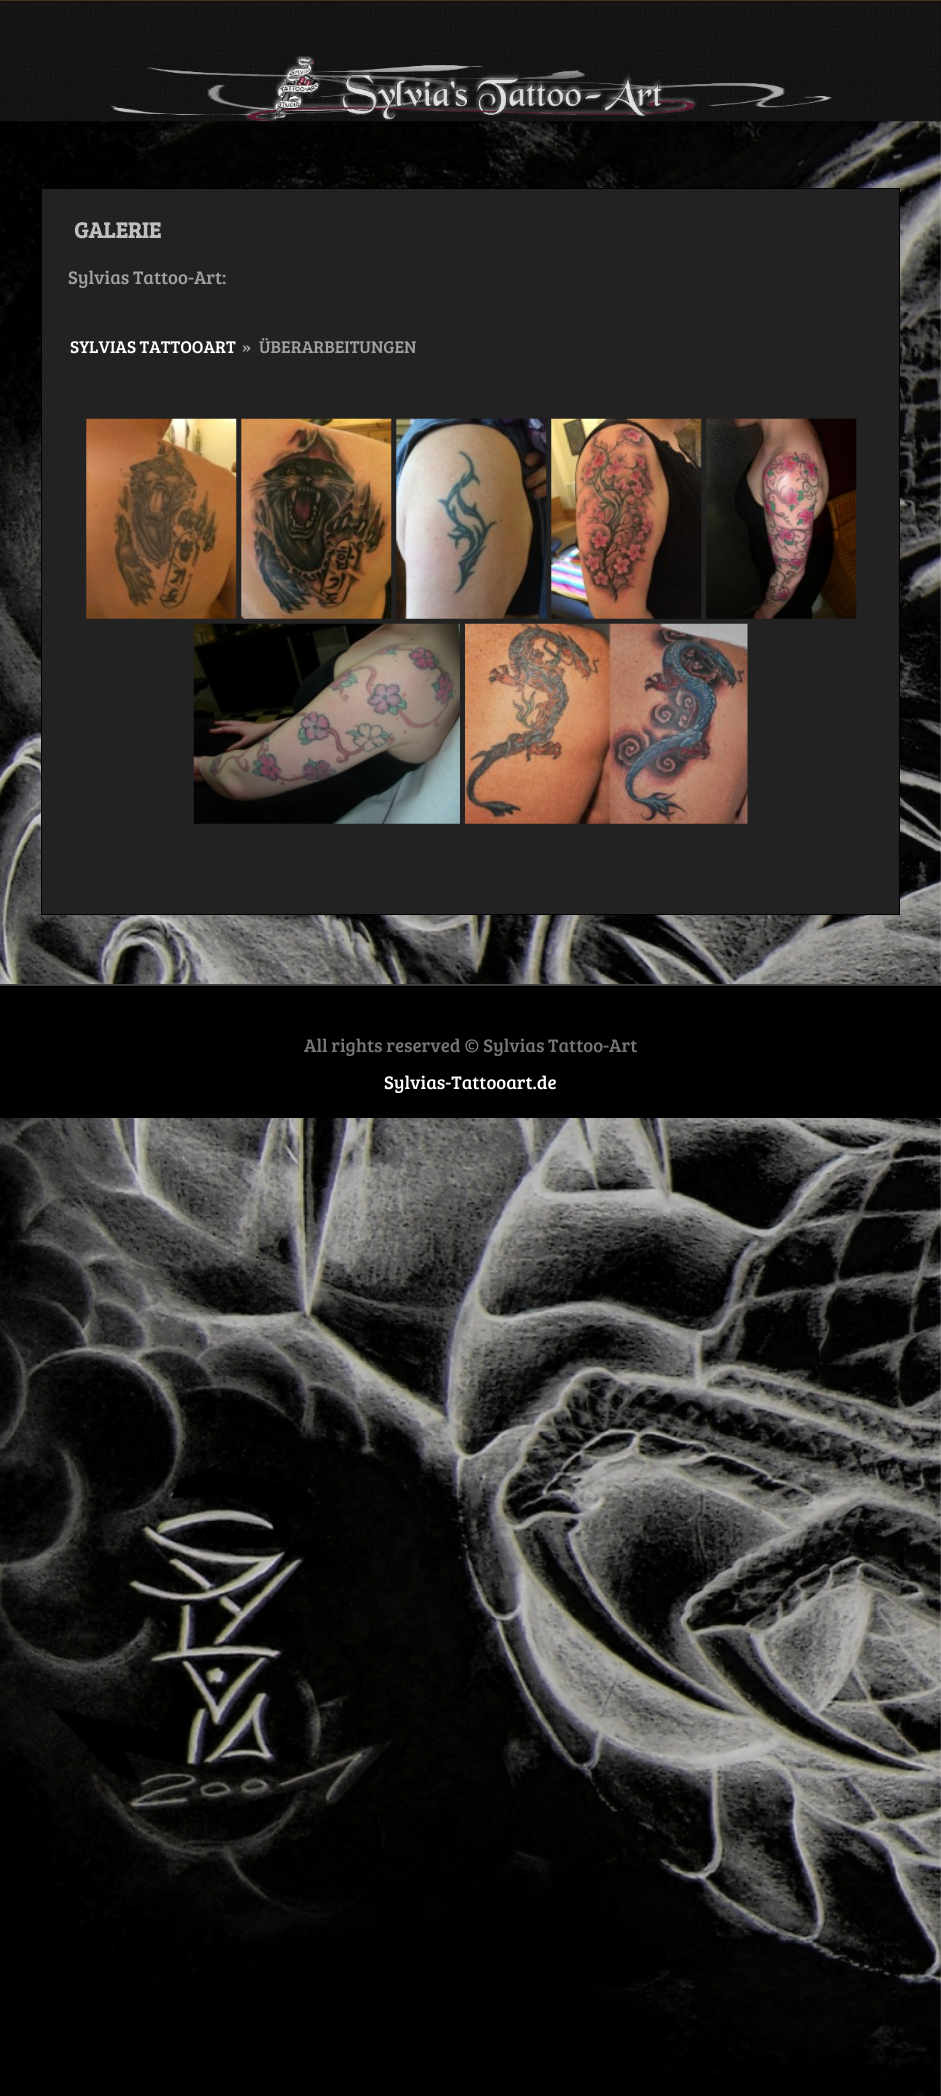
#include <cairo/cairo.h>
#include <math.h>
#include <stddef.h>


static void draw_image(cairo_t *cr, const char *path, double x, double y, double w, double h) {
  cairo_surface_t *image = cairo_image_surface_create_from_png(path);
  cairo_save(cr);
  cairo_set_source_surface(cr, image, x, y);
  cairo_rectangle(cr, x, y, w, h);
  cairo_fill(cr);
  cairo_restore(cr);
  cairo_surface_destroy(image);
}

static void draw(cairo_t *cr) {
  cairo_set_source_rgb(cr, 1, 1, 1);
  cairo_paint(cr);
  draw_image(cr, "images/1.png", 0, 121, 941, 1975);
  draw_image(cr, "images/2.png", 0, 1, 941, 121);
  cairo_set_source_rgb(cr, 68 / 255.0, 52 / 255.0, 27 / 255.0);
  cairo_rectangle(cr, 0, 0, 941, 1);
  cairo_fill(cr);
  draw_image(cr, "images/3.png", 0, 1, 941, 49);
  draw_image(cr, "images/4.png", 110, 56, 722, 66);
  cairo_set_source_rgb(cr, 34 / 255.0, 34 / 255.0, 34 / 255.0);
  cairo_rectangle(cr, 41.5, 188.5, 858, 726);
  cairo_fill_preserve(cr);
  cairo_set_source_rgb(cr, 0, 0, 0);
  cairo_set_line_width(cr, 1);
  cairo_stroke(cr);
  draw_image(cr, "images/5.png", 86, 418, 151, 201);
  draw_image(cr, "images/6.png", 241, 418, 151, 201);
  draw_image(cr, "images/7.png", 396, 418, 151, 201);
  draw_image(cr, "images/8.png", 551, 418, 151, 201);
  draw_image(cr, "images/9.png", 706, 418, 151, 201);
  draw_image(cr, "images/10.png", 193, 623, 267, 201);
  draw_image(cr, "images/11.png", 465, 623, 283, 201);
  cairo_set_source_rgb(cr, 68 / 255.0, 68 / 255.0, 68 / 255.0);
  cairo_rectangle(cr, 0, 984, 941, 1);
  cairo_fill(cr);
  cairo_set_source_rgb(cr, 56 / 255.0, 56 / 255.0, 56 / 255.0);
  cairo_rectangle(cr, 0, 985, 941, 1);
  cairo_fill(cr);
  cairo_set_source_rgb(cr, 0, 0, 0);
  cairo_rectangle(cr, 0, 986, 941, 132);
  cairo_fill(cr);
  cairo_select_font_face(cr, "Bree Serif", CAIRO_FONT_SLANT_NORMAL, CAIRO_FONT_WEIGHT_BOLD);
  cairo_set_font_size(cr, 22.5);
  cairo_set_source_rgb(cr, 192 / 255.0, 192 / 255.0, 192 / 255.0);
  cairo_move_to(cr, 74, 238);
  cairo_show_text(cr, "GALERIE");
  cairo_select_font_face(cr, "Bree Serif", CAIRO_FONT_SLANT_NORMAL, CAIRO_FONT_WEIGHT_NORMAL);
  cairo_set_font_size(cr, 18.75);
  cairo_set_source_rgb(cr, 160 / 255.0, 160 / 255.0, 160 / 255.0);
  cairo_move_to(cr, 68, 284);
  cairo_show_text(cr, "Sylvias Tattoo-Art:");
  cairo_set_font_size(cr, 17.5);
  cairo_set_source_rgb(cr, 1, 1, 1);
  cairo_move_to(cr, 70, 353);
  cairo_show_text(cr, "SYLVIAS TATTOOART");
  cairo_set_source_rgb(cr, 160 / 255.0, 160 / 255.0, 160 / 255.0);
  cairo_move_to(cr, 242, 353);
  cairo_show_text(cr, "»");
  cairo_move_to(cr, 259, 353);
  cairo_show_text(cr, "ÜBERARBEITUNGEN");
  cairo_set_font_size(cr, 18.75);
  cairo_set_source_rgb(cr, 119 / 255.0, 119 / 255.0, 119 / 255.0);
  cairo_move_to(cr, 304, 1052);
  cairo_show_text(cr, "All rights reserved © Sylvias Tattoo-Art");
  cairo_set_source_rgb(cr, 1, 1, 1);
  cairo_move_to(cr, 384, 1089);
  cairo_show_text(cr, "Sylvias-Tattooart.de");
}

int main(void) {
  cairo_surface_t *surface = cairo_image_surface_create(CAIRO_FORMAT_RGB24, 941, 2096);
  cairo_t *cr = cairo_create(surface);
  cairo_font_options_t *options = cairo_font_options_create();
  cairo_font_options_set_hint_metrics(options, CAIRO_HINT_METRICS_OFF);
  cairo_font_options_set_hint_style(options, CAIRO_HINT_STYLE_NONE);
  cairo_set_font_options(cr, options);
  cairo_set_miter_limit(cr, 4);
  draw(cr);
  cairo_surface_write_to_png(surface, "out.png");
  cairo_font_options_destroy(options);
  cairo_destroy(cr);
  cairo_surface_destroy(surface);
  return 0;
}
